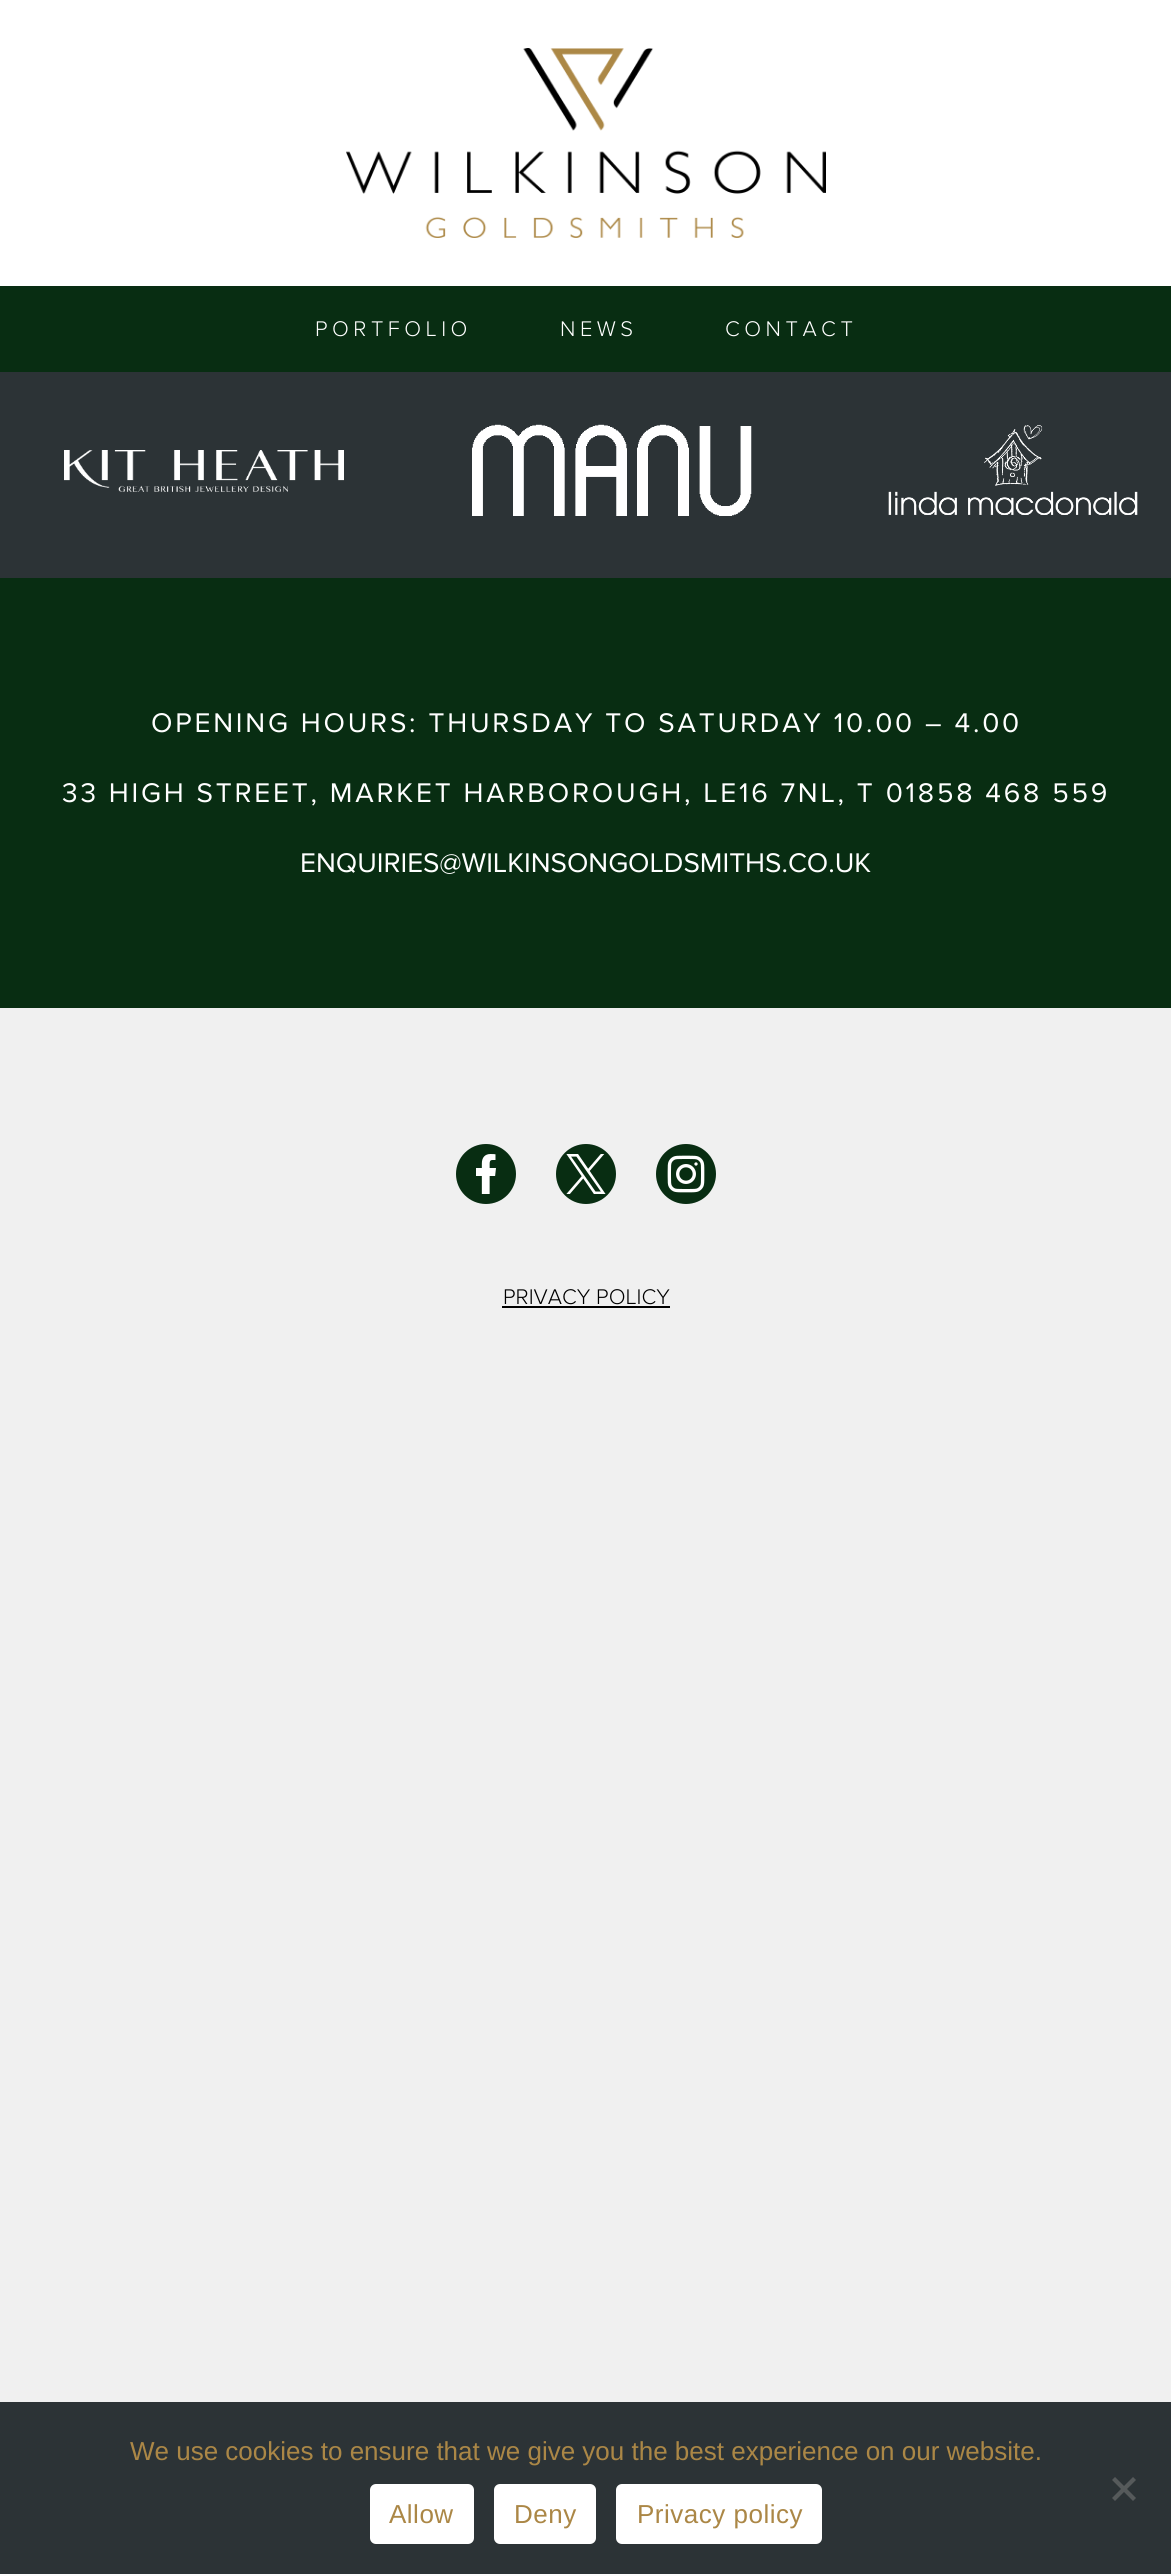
#include <cairo/cairo.h>
#include <math.h>
#include <stddef.h>


static void draw_spaced(cairo_t *cr, double x, double y, const char *s, double letter, double word) {
  cairo_move_to(cr, x, y);
  while (*s) {
    char ch[5] = {0};
    int n = 0;
    do ch[n++] = *s++; while ((*s & 0xC0) == 0x80);
    cairo_show_text(cr, ch);
    cairo_rel_move_to(cr, letter + word * (*ch == ' '), 0);
  }
}

static void rounded_rect(cairo_t *cr, double x, double y, double w, double h, double r) {
  cairo_new_sub_path(cr);
  cairo_arc(cr, x + w - r, y + h - r, r, 0, M_PI / 2);
  cairo_arc(cr, x + r, y + h - r, r, M_PI / 2, M_PI);
  cairo_arc(cr, x + r, y + r, r, M_PI, 1.5 * M_PI);
  cairo_arc(cr, x + w - r, y + r, r, 1.5 * M_PI, 2 * M_PI);
  cairo_close_path(cr);
}

static void draw_image(cairo_t *cr, const char *path, double x, double y, double w, double h) {
  cairo_surface_t *image = cairo_image_surface_create_from_png(path);
  cairo_save(cr);
  cairo_set_source_surface(cr, image, x, y);
  cairo_rectangle(cr, x, y, w, h);
  cairo_fill(cr);
  cairo_restore(cr);
  cairo_surface_destroy(image);
}

static void draw(cairo_t *cr) {
  cairo_set_source_rgb(cr, 240 / 255.0, 240 / 255.0, 240 / 255.0);
  cairo_paint(cr);
  cairo_set_source_rgb(cr, 1, 1, 1);
  cairo_rectangle(cr, 0, 0, 1171, 286);
  cairo_fill(cr);
  draw_image(cr, "images/1.png", 346, 48, 480, 190);
  cairo_set_source_rgb(cr, 8 / 255.0, 45 / 255.0, 18 / 255.0);
  cairo_rectangle(cr, 0, 286, 1171, 86);
  cairo_fill(cr);
  cairo_set_source_rgb(cr, 44 / 255.0, 51 / 255.0, 54 / 255.0);
  cairo_rectangle(cr, 0, 372, 1171, 206);
  cairo_fill(cr);
  draw_image(cr, "images/2.png", 64, 450, 280, 42);
  draw_image(cr, "images/3.png", 472, 424, 280, 92);
  draw_image(cr, "images/4.png", 888, 425, 250, 90);
  cairo_set_source_rgb(cr, 8 / 255.0, 45 / 255.0, 18 / 255.0);
  cairo_rectangle(cr, 0, 578, 1171, 430);
  cairo_fill(cr);
  cairo_arc(cr, 486, 1174, 30, 0, 2 * M_PI);
  cairo_fill(cr);
  draw_image(cr, "images/5.png", 476, 1154, 20, 40);
  cairo_arc(cr, 586, 1174, 30, 0, 2 * M_PI);
  cairo_fill(cr);
  draw_image(cr, "images/6.png", 566, 1154, 40, 40);
  cairo_arc(cr, 686, 1174, 30, 0, 2 * M_PI);
  cairo_fill(cr);
  draw_image(cr, "images/7.png", 667, 1155, 38, 38);
  cairo_set_source_rgb(cr, 0, 0, 0);
  cairo_rectangle(cr, 502, 1306, 168, 2);
  cairo_fill(cr);
  cairo_set_source_rgb(cr, 44 / 255.0, 51 / 255.0, 54 / 255.0);
  cairo_rectangle(cr, 0, 2402, 1171, 172);
  cairo_fill(cr);
  cairo_set_source_rgb(cr, 86 / 255.0, 90 / 255.0, 91 / 255.0);
  cairo_new_path(cr);
  cairo_move_to(cr, 1133, 2477);
  cairo_line_to(cr, 1136, 2480);
  cairo_line_to(cr, 1115, 2501);
  cairo_line_to(cr, 1112, 2498);
  cairo_close_path(cr);
  cairo_fill(cr);
  cairo_new_path(cr);
  cairo_move_to(cr, 1112, 2480);
  cairo_line_to(cr, 1115, 2477);
  cairo_line_to(cr, 1136, 2498);
  cairo_line_to(cr, 1133, 2501);
  cairo_close_path(cr);
  cairo_fill(cr);
  cairo_set_source_rgb(cr, 1, 1, 1);
  rounded_rect(cr, 370, 2484, 104, 60, 6);
  cairo_fill(cr);
  rounded_rect(cr, 494, 2484, 102, 60, 6);
  cairo_fill(cr);
  rounded_rect(cr, 616, 2484, 206, 60, 6);
  cairo_fill(cr);
  cairo_select_font_face(cr, "Proxima Nova Light", CAIRO_FONT_SLANT_NORMAL, CAIRO_FONT_WEIGHT_NORMAL);
  cairo_set_font_size(cr, 22);
  draw_spaced(cr, 315, 336, "PORTFOLIO", 4.5, 0);
  draw_spaced(cr, 560, 336, "NEWS", 4.5, 0);
  draw_spaced(cr, 725, 336, "CONTACT", 4.5, 0);
  cairo_select_font_face(cr, "Proxima Nova", CAIRO_FONT_SLANT_NORMAL, CAIRO_FONT_WEIGHT_NORMAL);
  cairo_set_font_size(cr, 28);
  draw_spaced(cr, 151, 732, "OPENING HOURS: THURSDAY TO SATURDAY 10.00 – 4.00", 2.8, 0);
  draw_spaced(cr, 62, 802, "33 HIGH STREET, MARKET HARBOROUGH, LE16 7NL, T 01858 468 559", 2.8, 0);
  cairo_move_to(cr, 300, 872);
  cairo_show_text(cr, "ENQUIRIES@WILKINSONGOLDSMITHS.CO.UK");
  cairo_select_font_face(cr, "Proxima Nova Light", CAIRO_FONT_SLANT_NORMAL, CAIRO_FONT_WEIGHT_NORMAL);
  cairo_set_font_size(cr, 22);
  cairo_set_source_rgb(cr, 0, 0, 0);
  cairo_move_to(cr, 503, 1304);
  cairo_show_text(cr, "PRIVACY POLICY");
  cairo_select_font_face(cr, "Liberation Sans", CAIRO_FONT_SLANT_NORMAL, CAIRO_FONT_WEIGHT_NORMAL);
  cairo_set_font_size(cr, 26);
  cairo_set_source_rgb(cr, 171 / 255.0, 135 / 255.0, 70 / 255.0);
  cairo_move_to(cr, 130, 2460);
  cairo_show_text(cr, "We use cookies to ensure that we give you the best experience on our website.");
  draw_spaced(cr, 389, 2523, "Allow", 0.5, 0);
  draw_spaced(cr, 514, 2523, "Deny", 0.5, 0);
  draw_spaced(cr, 637, 2523, "Privacy policy", 0.5, 0);
}

int main(void) {
  cairo_surface_t *surface = cairo_image_surface_create(CAIRO_FORMAT_RGB24, 1171, 2574);
  cairo_t *cr = cairo_create(surface);
  cairo_font_options_t *options = cairo_font_options_create();
  cairo_font_options_set_hint_metrics(options, CAIRO_HINT_METRICS_OFF);
  cairo_font_options_set_hint_style(options, CAIRO_HINT_STYLE_NONE);
  cairo_set_font_options(cr, options);
  cairo_set_miter_limit(cr, 4);
  draw(cr);
  cairo_surface_write_to_png(surface, "out.png");
  cairo_font_options_destroy(options);
  cairo_destroy(cr);
  cairo_surface_destroy(surface);
  return 0;
}
